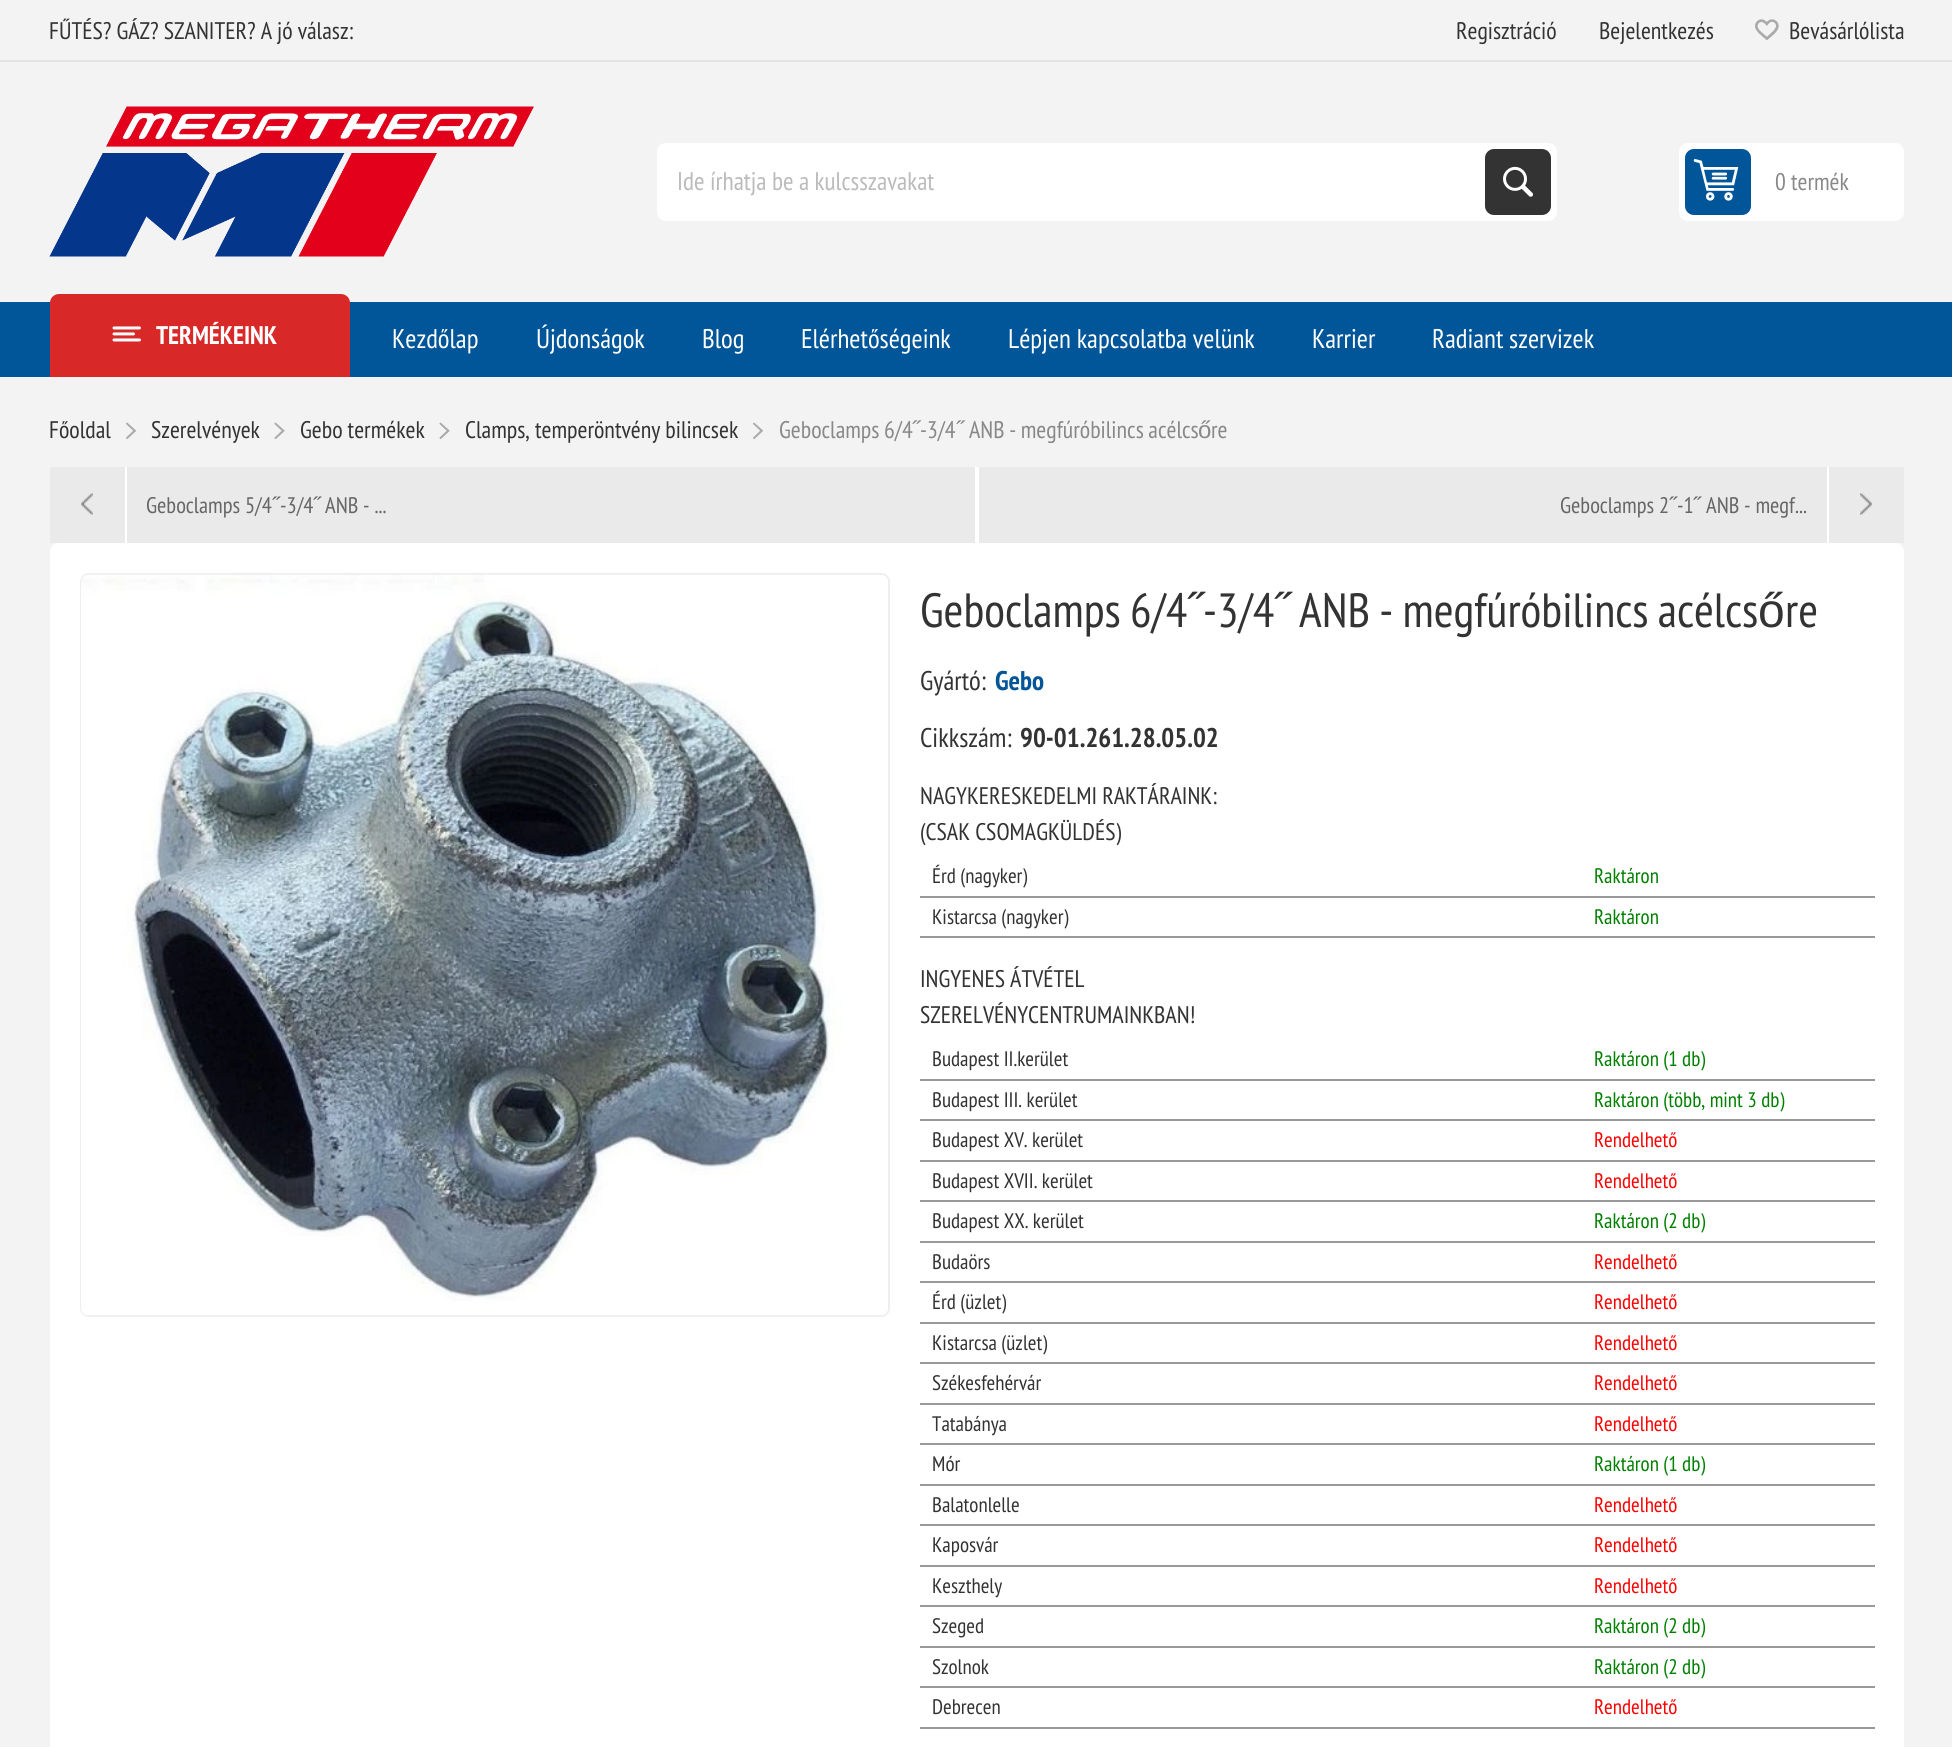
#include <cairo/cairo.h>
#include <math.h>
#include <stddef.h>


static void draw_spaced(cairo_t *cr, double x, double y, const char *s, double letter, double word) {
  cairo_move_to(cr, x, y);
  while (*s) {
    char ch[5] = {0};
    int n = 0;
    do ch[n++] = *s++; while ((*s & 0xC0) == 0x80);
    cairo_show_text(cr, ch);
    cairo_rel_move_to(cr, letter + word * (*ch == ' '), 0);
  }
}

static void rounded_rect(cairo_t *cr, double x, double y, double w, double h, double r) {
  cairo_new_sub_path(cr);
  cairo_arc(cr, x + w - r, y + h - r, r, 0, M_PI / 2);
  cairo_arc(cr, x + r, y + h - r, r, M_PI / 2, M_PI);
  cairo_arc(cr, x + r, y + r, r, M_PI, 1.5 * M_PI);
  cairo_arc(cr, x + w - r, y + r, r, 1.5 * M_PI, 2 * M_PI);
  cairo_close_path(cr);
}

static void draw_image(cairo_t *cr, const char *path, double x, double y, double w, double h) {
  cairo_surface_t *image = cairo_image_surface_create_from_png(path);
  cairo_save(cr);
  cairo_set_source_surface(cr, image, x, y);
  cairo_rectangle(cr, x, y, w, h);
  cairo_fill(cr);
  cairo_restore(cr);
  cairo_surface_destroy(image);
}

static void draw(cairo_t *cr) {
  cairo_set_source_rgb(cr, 243 / 255.0, 243 / 255.0, 243 / 255.0);
  cairo_paint(cr);
  draw_image(cr, "images/1.png", 1755, 19, 24, 22);
  cairo_set_source_rgb(cr, 227 / 255.0, 227 / 255.0, 227 / 255.0);
  cairo_rectangle(cr, 0, 60, 1952, 2);
  cairo_fill(cr);
  draw_image(cr, "images/2.png", 49, 106, 485, 151);
  cairo_set_source_rgb(cr, 1, 1, 1);
  rounded_rect(cr, 657, 143, 900, 78, 9);
  cairo_fill(cr);
  cairo_set_source_rgb(cr, 51 / 255.0, 51 / 255.0, 51 / 255.0);
  rounded_rect(cr, 1485, 149, 66, 66, 9);
  cairo_fill(cr);
  draw_image(cr, "images/3.png", 1503, 166, 31, 31);
  cairo_set_source_rgb(cr, 1, 1, 1);
  rounded_rect(cr, 1679, 143, 225, 78, 9);
  cairo_fill(cr);
  cairo_set_source_rgb(cr, 0, 86 / 255.0, 153 / 255.0);
  rounded_rect(cr, 1685, 149, 66, 66, 9);
  cairo_fill(cr);
  draw_image(cr, "images/4.png", 1693, 159, 46, 42);
  cairo_rectangle(cr, 0, 302, 1952, 75);
  cairo_fill(cr);
  cairo_set_source_rgb(cr, 216 / 255.0, 41 / 255.0, 40 / 255.0);
  cairo_new_path(cr);
  cairo_move_to(cr, 59, 294);
  cairo_line_to(cr, 341, 294);
  cairo_curve_to(cr, 346, 294, 350, 298, 350, 303);
  cairo_line_to(cr, 350, 377);
  cairo_line_to(cr, 50, 377);
  cairo_line_to(cr, 50, 303);
  cairo_curve_to(cr, 50, 298, 54, 294, 59, 294);
  cairo_close_path(cr);
  cairo_fill(cr);
  draw_image(cr, "images/5.png", 112, 326, 29, 16);
  draw_image(cr, "images/6.png", 126, 422, 11, 17);
  draw_image(cr, "images/7.png", 274, 422, 11, 17);
  draw_image(cr, "images/7.png", 439, 422, 11, 17);
  draw_image(cr, "images/6.png", 753, 422, 11, 17);
  cairo_set_source_rgb(cr, 234 / 255.0, 234 / 255.0, 234 / 255.0);
  cairo_rectangle(cr, 50, 467, 925, 76);
  cairo_fill(cr);
  cairo_set_source_rgb(cr, 1, 1, 1);
  cairo_rectangle(cr, 975, 467, 4, 76);
  cairo_fill(cr);
  draw_image(cr, "images/8.png", 81, 493, 12, 22);
  cairo_rectangle(cr, 125, 467, 2, 76);
  cairo_fill(cr);
  cairo_set_source_rgb(cr, 234 / 255.0, 234 / 255.0, 234 / 255.0);
  cairo_rectangle(cr, 979, 467, 925, 76);
  cairo_fill(cr);
  draw_image(cr, "images/9.png", 1860, 493, 12, 22);
  cairo_set_source_rgb(cr, 1, 1, 1);
  cairo_rectangle(cr, 1827, 467, 2, 76);
  cairo_fill(cr);
  rounded_rect(cr, 50, 543, 1854, 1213, 9);
  cairo_fill(cr);
  rounded_rect(cr, 81, 574, 808, 742, 8);
  cairo_set_source_rgb(cr, 238 / 255.0, 238 / 255.0, 238 / 255.0);
  cairo_stroke(cr);
  draw_image(cr, "images/10.png", 81, 574, 807, 742);
  cairo_set_source_rgb(cr, 153 / 255.0, 153 / 255.0, 153 / 255.0);
  cairo_rectangle(cr, 920, 896, 955, 2);
  cairo_fill(cr);
  cairo_rectangle(cr, 920, 936, 955, 2);
  cairo_fill(cr);
  cairo_rectangle(cr, 920, 1079, 955, 2);
  cairo_fill(cr);
  cairo_rectangle(cr, 920, 1119, 955, 2);
  cairo_fill(cr);
  cairo_rectangle(cr, 920, 1160, 955, 2);
  cairo_fill(cr);
  cairo_rectangle(cr, 920, 1200, 955, 2);
  cairo_fill(cr);
  cairo_rectangle(cr, 920, 1241, 955, 2);
  cairo_fill(cr);
  cairo_rectangle(cr, 920, 1281, 955, 2);
  cairo_fill(cr);
  cairo_rectangle(cr, 920, 1322, 955, 2);
  cairo_fill(cr);
  cairo_rectangle(cr, 920, 1362, 955, 2);
  cairo_fill(cr);
  cairo_rectangle(cr, 920, 1403, 955, 2);
  cairo_fill(cr);
  cairo_rectangle(cr, 920, 1443, 955, 2);
  cairo_fill(cr);
  cairo_rectangle(cr, 920, 1484, 955, 2);
  cairo_fill(cr);
  cairo_rectangle(cr, 920, 1524, 955, 2);
  cairo_fill(cr);
  cairo_rectangle(cr, 920, 1565, 955, 2);
  cairo_fill(cr);
  cairo_rectangle(cr, 920, 1605, 955, 2);
  cairo_fill(cr);
  cairo_rectangle(cr, 920, 1646, 955, 2);
  cairo_fill(cr);
  cairo_rectangle(cr, 920, 1686, 955, 2);
  cairo_fill(cr);
  cairo_rectangle(cr, 920, 1727, 955, 2);
  cairo_fill(cr);
  cairo_select_font_face(cr, "PT Sans Narrow", CAIRO_FONT_SLANT_NORMAL, CAIRO_FONT_WEIGHT_NORMAL);
  cairo_set_font_size(cr, 24);
  cairo_set_source_rgb(cr, 51 / 255.0, 51 / 255.0, 51 / 255.0);
  cairo_move_to(cr, 49, 39);
  cairo_show_text(cr, "FŰTÉS? GÁZ? SZANITER? A jó válasz:");
  cairo_move_to(cr, 1456, 39);
  cairo_show_text(cr, "Regisztráció");
  cairo_move_to(cr, 1599, 39);
  cairo_show_text(cr, "Bejelentkezés");
  cairo_move_to(cr, 1789, 39);
  cairo_show_text(cr, "Bevásárlólista");
  cairo_set_font_size(cr, 25.5);
  cairo_set_source_rgb(cr, 187 / 255.0, 187 / 255.0, 187 / 255.0);
  cairo_move_to(cr, 677, 190);
  cairo_show_text(cr, "Ide írhatja be a kulcsszavakat");
  cairo_set_font_size(cr, 24);
  cairo_set_source_rgb(cr, 136 / 255.0, 136 / 255.0, 136 / 255.0);
  cairo_move_to(cr, 1775, 190);
  cairo_show_text(cr, "0 termék");
  cairo_select_font_face(cr, "PT Sans Narrow", CAIRO_FONT_SLANT_NORMAL, CAIRO_FONT_WEIGHT_BOLD);
  cairo_set_font_size(cr, 25.5);
  cairo_set_source_rgb(cr, 1, 1, 1);
  cairo_move_to(cr, 156, 344);
  cairo_show_text(cr, "TERMÉKEINK");
  cairo_select_font_face(cr, "PT Sans Narrow", CAIRO_FONT_SLANT_NORMAL, CAIRO_FONT_WEIGHT_NORMAL);
  cairo_set_font_size(cr, 27);
  cairo_move_to(cr, 392, 348);
  cairo_show_text(cr, "Kezdőlap");
  cairo_move_to(cr, 536, 348);
  cairo_show_text(cr, "Újdonságok");
  cairo_move_to(cr, 702, 348);
  cairo_show_text(cr, "Blog");
  cairo_move_to(cr, 801, 348);
  cairo_show_text(cr, "Elérhetőségeink");
  cairo_move_to(cr, 1008, 348);
  cairo_show_text(cr, "Lépjen kapcsolatba velünk");
  cairo_move_to(cr, 1312, 348);
  cairo_show_text(cr, "Karrier");
  cairo_move_to(cr, 1432, 348);
  cairo_show_text(cr, "Radiant szervizek");
  cairo_set_font_size(cr, 24);
  cairo_set_source_rgb(cr, 51 / 255.0, 51 / 255.0, 51 / 255.0);
  cairo_move_to(cr, 49, 438);
  cairo_show_text(cr, "Főoldal");
  cairo_move_to(cr, 151, 438);
  cairo_show_text(cr, "Szerelvények");
  cairo_move_to(cr, 300, 438);
  cairo_show_text(cr, "Gebo termékek");
  cairo_move_to(cr, 465, 438);
  cairo_show_text(cr, "Clamps, temperöntvény bilincsek");
  cairo_set_source_rgb(cr, 136 / 255.0, 136 / 255.0, 136 / 255.0);
  draw_spaced(cr, 779, 438, "Geboclamps 6/4", 0, -0.5);
  cairo_select_font_face(cr, "Liberation Sans", CAIRO_FONT_SLANT_NORMAL, CAIRO_FONT_WEIGHT_NORMAL);
  cairo_move_to(cr, 912, 438);
  cairo_show_text(cr, "˝");
  cairo_select_font_face(cr, "PT Sans Narrow", CAIRO_FONT_SLANT_NORMAL, CAIRO_FONT_WEIGHT_NORMAL);
  cairo_move_to(cr, 920, 438);
  cairo_show_text(cr, "-3/4");
  cairo_select_font_face(cr, "Liberation Sans", CAIRO_FONT_SLANT_NORMAL, CAIRO_FONT_WEIGHT_NORMAL);
  cairo_move_to(cr, 956, 438);
  cairo_show_text(cr, "˝");
  cairo_select_font_face(cr, "PT Sans Narrow", CAIRO_FONT_SLANT_NORMAL, CAIRO_FONT_WEIGHT_NORMAL);
  draw_spaced(cr, 969, 438, "ANB - megfúróbilincs acélcs", 0, -0.5);
  cairo_select_font_face(cr, "Liberation Sans", CAIRO_FONT_SLANT_NORMAL, CAIRO_FONT_WEIGHT_NORMAL);
  cairo_move_to(cr, 1198, 438);
  cairo_show_text(cr, "ő");
  cairo_select_font_face(cr, "PT Sans Narrow", CAIRO_FONT_SLANT_NORMAL, CAIRO_FONT_WEIGHT_NORMAL);
  cairo_move_to(cr, 1211, 438);
  cairo_show_text(cr, "re");
  cairo_set_font_size(cr, 22.5);
  cairo_set_source_rgb(cr, 102 / 255.0, 102 / 255.0, 102 / 255.0);
  cairo_move_to(cr, 146, 513);
  cairo_show_text(cr, "Geboclamps 5/4");
  cairo_select_font_face(cr, "Liberation Sans", CAIRO_FONT_SLANT_NORMAL, CAIRO_FONT_WEIGHT_NORMAL);
  cairo_move_to(cr, 272, 513);
  cairo_show_text(cr, "˝");
  cairo_select_font_face(cr, "PT Sans Narrow", CAIRO_FONT_SLANT_NORMAL, CAIRO_FONT_WEIGHT_NORMAL);
  cairo_move_to(cr, 280, 513);
  cairo_show_text(cr, "-3/4");
  cairo_select_font_face(cr, "Liberation Sans", CAIRO_FONT_SLANT_NORMAL, CAIRO_FONT_WEIGHT_NORMAL);
  cairo_move_to(cr, 313, 513);
  cairo_show_text(cr, "˝");
  cairo_select_font_face(cr, "PT Sans Narrow", CAIRO_FONT_SLANT_NORMAL, CAIRO_FONT_WEIGHT_NORMAL);
  cairo_move_to(cr, 325, 513);
  cairo_show_text(cr, "ANB - ...");
  cairo_move_to(cr, 1560, 513);
  cairo_show_text(cr, "Geboclamps 2");
  cairo_select_font_face(cr, "Liberation Sans", CAIRO_FONT_SLANT_NORMAL, CAIRO_FONT_WEIGHT_NORMAL);
  cairo_move_to(cr, 1669, 513);
  cairo_show_text(cr, "˝");
  cairo_select_font_face(cr, "PT Sans Narrow", CAIRO_FONT_SLANT_NORMAL, CAIRO_FONT_WEIGHT_NORMAL);
  cairo_move_to(cr, 1677, 513);
  cairo_show_text(cr, "-1");
  cairo_select_font_face(cr, "Liberation Sans", CAIRO_FONT_SLANT_NORMAL, CAIRO_FONT_WEIGHT_NORMAL);
  cairo_move_to(cr, 1693, 513);
  cairo_show_text(cr, "˝");
  cairo_select_font_face(cr, "PT Sans Narrow", CAIRO_FONT_SLANT_NORMAL, CAIRO_FONT_WEIGHT_NORMAL);
  cairo_move_to(cr, 1706, 513);
  cairo_show_text(cr, "ANB - megf...");
  cairo_set_font_size(cr, 48);
  cairo_set_source_rgb(cr, 51 / 255.0, 51 / 255.0, 51 / 255.0);
  draw_spaced(cr, 920, 627, "Geboclamps 6/4", 0, -1);
  cairo_select_font_face(cr, "Liberation Sans", CAIRO_FONT_SLANT_NORMAL, CAIRO_FONT_WEIGHT_NORMAL);
  cairo_move_to(cr, 1187, 627);
  cairo_show_text(cr, "˝");
  cairo_select_font_face(cr, "PT Sans Narrow", CAIRO_FONT_SLANT_NORMAL, CAIRO_FONT_WEIGHT_NORMAL);
  cairo_move_to(cr, 1203, 627);
  cairo_show_text(cr, "-3/4");
  cairo_select_font_face(cr, "Liberation Sans", CAIRO_FONT_SLANT_NORMAL, CAIRO_FONT_WEIGHT_NORMAL);
  cairo_move_to(cr, 1274, 627);
  cairo_show_text(cr, "˝");
  cairo_select_font_face(cr, "PT Sans Narrow", CAIRO_FONT_SLANT_NORMAL, CAIRO_FONT_WEIGHT_NORMAL);
  draw_spaced(cr, 1299, 627, "ANB - megfúróbilincs acélcs", 0, -1);
  cairo_select_font_face(cr, "Liberation Sans", CAIRO_FONT_SLANT_NORMAL, CAIRO_FONT_WEIGHT_NORMAL);
  cairo_move_to(cr, 1758, 627);
  cairo_show_text(cr, "ő");
  cairo_select_font_face(cr, "PT Sans Narrow", CAIRO_FONT_SLANT_NORMAL, CAIRO_FONT_WEIGHT_NORMAL);
  cairo_move_to(cr, 1785, 627);
  cairo_show_text(cr, "re");
  cairo_set_font_size(cr, 27);
  cairo_move_to(cr, 920, 690);
  cairo_show_text(cr, "Gyártó:");
  cairo_select_font_face(cr, "PT Sans Narrow", CAIRO_FONT_SLANT_NORMAL, CAIRO_FONT_WEIGHT_BOLD);
  cairo_set_source_rgb(cr, 0, 86 / 255.0, 153 / 255.0);
  cairo_move_to(cr, 995, 690);
  cairo_show_text(cr, "Gebo");
  cairo_select_font_face(cr, "PT Sans Narrow", CAIRO_FONT_SLANT_NORMAL, CAIRO_FONT_WEIGHT_NORMAL);
  cairo_set_source_rgb(cr, 51 / 255.0, 51 / 255.0, 51 / 255.0);
  cairo_move_to(cr, 920, 747);
  cairo_show_text(cr, "Cikkszám:");
  cairo_select_font_face(cr, "PT Sans Narrow", CAIRO_FONT_SLANT_NORMAL, CAIRO_FONT_WEIGHT_BOLD);
  cairo_move_to(cr, 1020, 747);
  cairo_show_text(cr, "90-01.261.28.05.02");
  cairo_select_font_face(cr, "PT Sans Narrow", CAIRO_FONT_SLANT_NORMAL, CAIRO_FONT_WEIGHT_NORMAL);
  cairo_set_font_size(cr, 24);
  cairo_move_to(cr, 920, 804);
  cairo_show_text(cr, "NAGYKERESKEDELMI RAKTÁRAINK:");
  cairo_move_to(cr, 920, 840);
  cairo_show_text(cr, "(CSAK CSOMAGKÜLDÉS)");
  cairo_set_font_size(cr, 21);
  cairo_move_to(cr, 932, 883);
  cairo_show_text(cr, "Érd (nagyker)");
  cairo_set_source_rgb(cr, 0, 128 / 255.0, 0);
  cairo_move_to(cr, 1594, 883);
  cairo_show_text(cr, "Raktáron");
  cairo_set_source_rgb(cr, 51 / 255.0, 51 / 255.0, 51 / 255.0);
  cairo_move_to(cr, 932, 924);
  cairo_show_text(cr, "Kistarcsa (nagyker)");
  cairo_set_source_rgb(cr, 0, 128 / 255.0, 0);
  cairo_move_to(cr, 1594, 924);
  cairo_show_text(cr, "Raktáron");
  cairo_set_font_size(cr, 24);
  cairo_set_source_rgb(cr, 51 / 255.0, 51 / 255.0, 51 / 255.0);
  cairo_move_to(cr, 920, 987);
  cairo_show_text(cr, "INGYENES ÁTVÉTEL");
  cairo_move_to(cr, 920, 1023);
  cairo_show_text(cr, "SZERELVÉNYCENTRUMAINKBAN!");
  cairo_set_font_size(cr, 21);
  cairo_move_to(cr, 932, 1066);
  cairo_show_text(cr, "Budapest II.kerület");
  cairo_set_source_rgb(cr, 0, 128 / 255.0, 0);
  cairo_move_to(cr, 1594, 1066);
  cairo_show_text(cr, "Raktáron (1 db)");
  cairo_set_source_rgb(cr, 51 / 255.0, 51 / 255.0, 51 / 255.0);
  cairo_move_to(cr, 932, 1107);
  cairo_show_text(cr, "Budapest III. kerület");
  cairo_set_source_rgb(cr, 0, 128 / 255.0, 0);
  cairo_move_to(cr, 1594, 1107);
  cairo_show_text(cr, "Raktáron (több, mint 3 db)");
  cairo_set_source_rgb(cr, 51 / 255.0, 51 / 255.0, 51 / 255.0);
  cairo_move_to(cr, 932, 1147);
  cairo_show_text(cr, "Budapest XV. kerület");
  cairo_set_source_rgb(cr, 1, 0, 0);
  cairo_move_to(cr, 1594, 1147);
  cairo_show_text(cr, "Rendelhető");
  cairo_set_source_rgb(cr, 51 / 255.0, 51 / 255.0, 51 / 255.0);
  cairo_move_to(cr, 932, 1188);
  cairo_show_text(cr, "Budapest XVII. kerület");
  cairo_set_source_rgb(cr, 1, 0, 0);
  cairo_move_to(cr, 1594, 1188);
  cairo_show_text(cr, "Rendelhető");
  cairo_set_source_rgb(cr, 51 / 255.0, 51 / 255.0, 51 / 255.0);
  cairo_move_to(cr, 932, 1228);
  cairo_show_text(cr, "Budapest XX. kerület");
  cairo_set_source_rgb(cr, 0, 128 / 255.0, 0);
  cairo_move_to(cr, 1594, 1228);
  cairo_show_text(cr, "Raktáron (2 db)");
  cairo_set_source_rgb(cr, 51 / 255.0, 51 / 255.0, 51 / 255.0);
  cairo_move_to(cr, 932, 1269);
  cairo_show_text(cr, "Budaörs");
  cairo_set_source_rgb(cr, 1, 0, 0);
  cairo_move_to(cr, 1594, 1269);
  cairo_show_text(cr, "Rendelhető");
  cairo_set_source_rgb(cr, 51 / 255.0, 51 / 255.0, 51 / 255.0);
  cairo_move_to(cr, 932, 1309);
  cairo_show_text(cr, "Érd (üzlet)");
  cairo_set_source_rgb(cr, 1, 0, 0);
  cairo_move_to(cr, 1594, 1309);
  cairo_show_text(cr, "Rendelhető");
  cairo_set_source_rgb(cr, 51 / 255.0, 51 / 255.0, 51 / 255.0);
  cairo_move_to(cr, 932, 1350);
  cairo_show_text(cr, "Kistarcsa (üzlet)");
  cairo_set_source_rgb(cr, 1, 0, 0);
  cairo_move_to(cr, 1594, 1350);
  cairo_show_text(cr, "Rendelhető");
  cairo_set_source_rgb(cr, 51 / 255.0, 51 / 255.0, 51 / 255.0);
  cairo_move_to(cr, 932, 1390);
  cairo_show_text(cr, "Székesfehérvár");
  cairo_set_source_rgb(cr, 1, 0, 0);
  cairo_move_to(cr, 1594, 1390);
  cairo_show_text(cr, "Rendelhető");
  cairo_set_source_rgb(cr, 51 / 255.0, 51 / 255.0, 51 / 255.0);
  cairo_move_to(cr, 932, 1431);
  cairo_show_text(cr, "Tatabánya");
  cairo_set_source_rgb(cr, 1, 0, 0);
  cairo_move_to(cr, 1594, 1431);
  cairo_show_text(cr, "Rendelhető");
  cairo_set_source_rgb(cr, 51 / 255.0, 51 / 255.0, 51 / 255.0);
  cairo_move_to(cr, 932, 1471);
  cairo_show_text(cr, "Mór");
  cairo_set_source_rgb(cr, 0, 128 / 255.0, 0);
  cairo_move_to(cr, 1594, 1471);
  cairo_show_text(cr, "Raktáron (1 db)");
  cairo_set_source_rgb(cr, 51 / 255.0, 51 / 255.0, 51 / 255.0);
  cairo_move_to(cr, 932, 1512);
  cairo_show_text(cr, "Balatonlelle");
  cairo_set_source_rgb(cr, 1, 0, 0);
  cairo_move_to(cr, 1594, 1512);
  cairo_show_text(cr, "Rendelhető");
  cairo_set_source_rgb(cr, 51 / 255.0, 51 / 255.0, 51 / 255.0);
  cairo_move_to(cr, 932, 1552);
  cairo_show_text(cr, "Kaposvár");
  cairo_set_source_rgb(cr, 1, 0, 0);
  cairo_move_to(cr, 1594, 1552);
  cairo_show_text(cr, "Rendelhető");
  cairo_set_source_rgb(cr, 51 / 255.0, 51 / 255.0, 51 / 255.0);
  cairo_move_to(cr, 932, 1593);
  cairo_show_text(cr, "Keszthely");
  cairo_set_source_rgb(cr, 1, 0, 0);
  cairo_move_to(cr, 1594, 1593);
  cairo_show_text(cr, "Rendelhető");
  cairo_set_source_rgb(cr, 51 / 255.0, 51 / 255.0, 51 / 255.0);
  cairo_move_to(cr, 932, 1633);
  cairo_show_text(cr, "Szeged");
  cairo_set_source_rgb(cr, 0, 128 / 255.0, 0);
  cairo_move_to(cr, 1594, 1633);
  cairo_show_text(cr, "Raktáron (2 db)");
  cairo_set_source_rgb(cr, 51 / 255.0, 51 / 255.0, 51 / 255.0);
  cairo_move_to(cr, 932, 1674);
  cairo_show_text(cr, "Szolnok");
  cairo_set_source_rgb(cr, 0, 128 / 255.0, 0);
  cairo_move_to(cr, 1594, 1674);
  cairo_show_text(cr, "Raktáron (2 db)");
  cairo_set_source_rgb(cr, 51 / 255.0, 51 / 255.0, 51 / 255.0);
  cairo_move_to(cr, 932, 1714);
  cairo_show_text(cr, "Debrecen");
  cairo_set_source_rgb(cr, 1, 0, 0);
  cairo_move_to(cr, 1594, 1714);
  cairo_show_text(cr, "Rendelhető");
}

int main(void) {
  cairo_surface_t *surface = cairo_image_surface_create(CAIRO_FORMAT_RGB24, 1952, 1747);
  cairo_t *cr = cairo_create(surface);
  cairo_font_options_t *options = cairo_font_options_create();
  cairo_font_options_set_hint_metrics(options, CAIRO_HINT_METRICS_OFF);
  cairo_font_options_set_hint_style(options, CAIRO_HINT_STYLE_NONE);
  cairo_set_font_options(cr, options);
  cairo_set_miter_limit(cr, 4);
  draw(cr);
  cairo_surface_write_to_png(surface, "out.png");
  cairo_font_options_destroy(options);
  cairo_destroy(cr);
  cairo_surface_destroy(surface);
  return 0;
}
